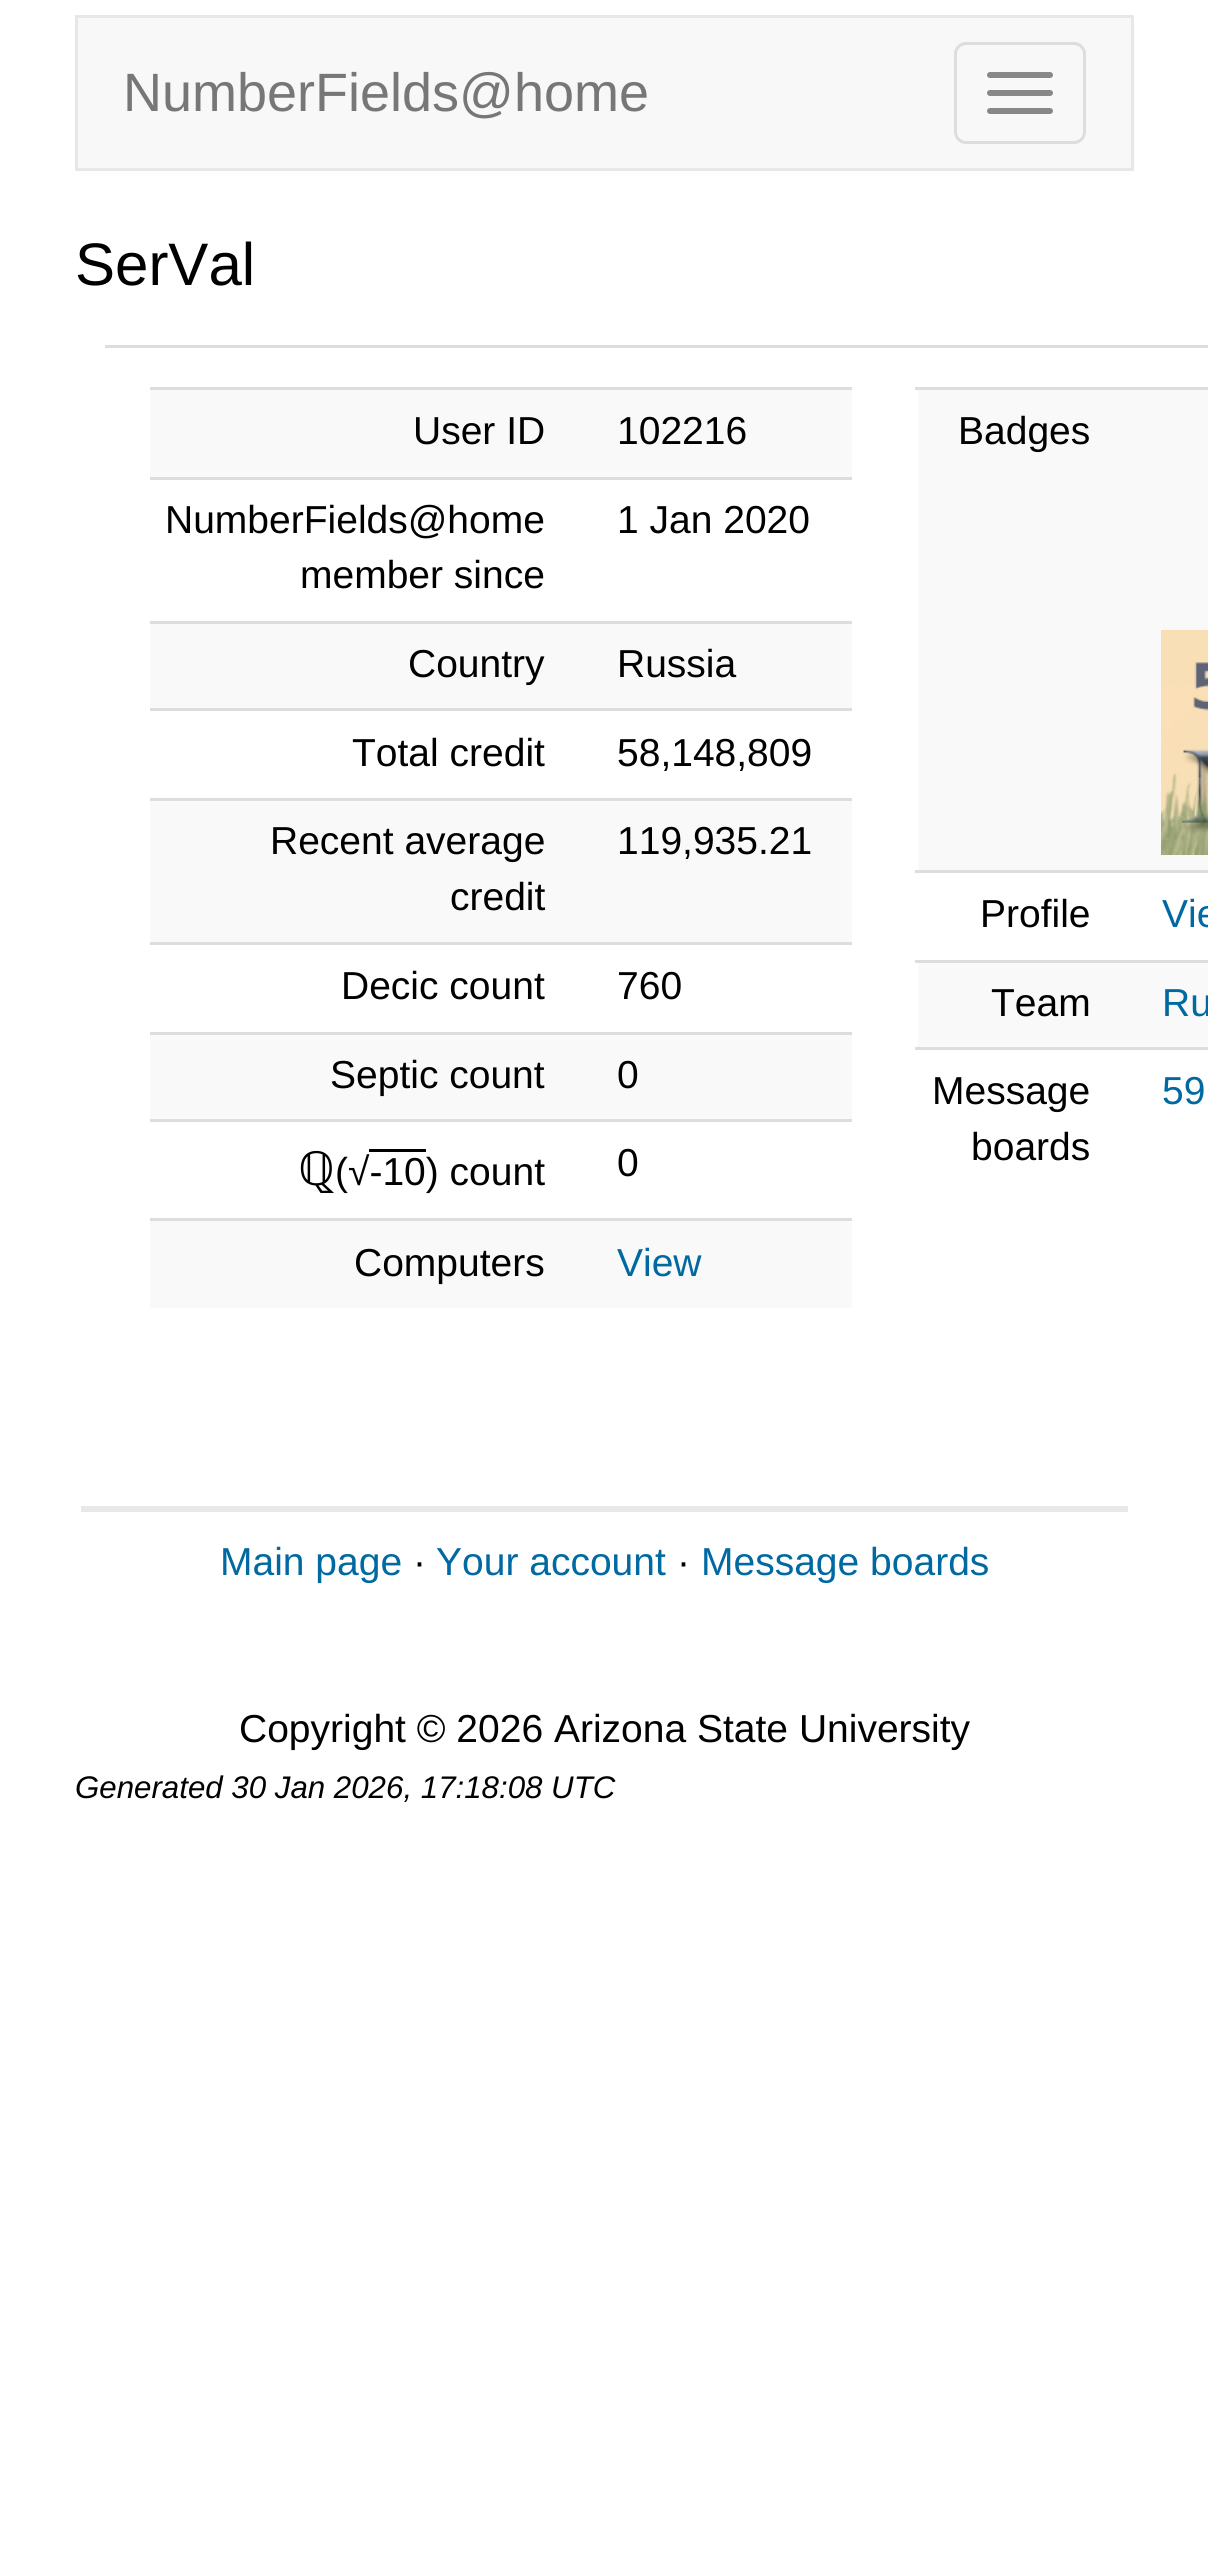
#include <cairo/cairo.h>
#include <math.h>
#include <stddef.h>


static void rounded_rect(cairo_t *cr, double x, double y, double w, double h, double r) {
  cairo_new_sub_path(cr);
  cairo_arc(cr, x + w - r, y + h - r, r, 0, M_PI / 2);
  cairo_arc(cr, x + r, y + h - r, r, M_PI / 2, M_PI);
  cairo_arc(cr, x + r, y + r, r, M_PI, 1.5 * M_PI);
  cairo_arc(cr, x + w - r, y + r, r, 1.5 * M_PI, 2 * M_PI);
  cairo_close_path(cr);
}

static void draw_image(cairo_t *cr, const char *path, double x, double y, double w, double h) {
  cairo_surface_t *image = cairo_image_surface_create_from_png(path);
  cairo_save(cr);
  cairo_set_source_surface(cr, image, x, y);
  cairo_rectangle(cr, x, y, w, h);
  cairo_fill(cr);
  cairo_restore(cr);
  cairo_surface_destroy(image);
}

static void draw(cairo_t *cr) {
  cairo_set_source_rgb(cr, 1, 1, 1);
  cairo_paint(cr);
  cairo_set_source_rgb(cr, 248 / 255.0, 248 / 255.0, 248 / 255.0);
  cairo_rectangle(cr, 76.5, 16.5, 1056, 153);
  cairo_fill_preserve(cr);
  cairo_set_source_rgb(cr, 231 / 255.0, 231 / 255.0, 231 / 255.0);
  cairo_set_line_width(cr, 3);
  cairo_stroke(cr);
  rounded_rect(cr, 955.5, 43.5, 129, 99, 10.5);
  cairo_set_source_rgb(cr, 221 / 255.0, 221 / 255.0, 221 / 255.0);
  cairo_stroke(cr);
  cairo_set_source_rgb(cr, 136 / 255.0, 136 / 255.0, 136 / 255.0);
  rounded_rect(cr, 987, 72, 66, 6, 3);
  cairo_fill(cr);
  rounded_rect(cr, 987, 90, 66, 6, 3);
  cairo_fill(cr);
  rounded_rect(cr, 987, 108, 66, 6, 3);
  cairo_fill(cr);
  cairo_set_source_rgb(cr, 249 / 255.0, 249 / 255.0, 249 / 255.0);
  cairo_rectangle(cr, 150, 390, 702, 87);
  cairo_fill(cr);
  cairo_set_source_rgb(cr, 221 / 255.0, 221 / 255.0, 221 / 255.0);
  cairo_rectangle(cr, 150, 387, 702, 3);
  cairo_fill(cr);
  cairo_rectangle(cr, 150, 477, 702, 3);
  cairo_fill(cr);
  cairo_set_source_rgb(cr, 249 / 255.0, 249 / 255.0, 249 / 255.0);
  cairo_rectangle(cr, 150, 624, 702, 84);
  cairo_fill(cr);
  cairo_set_source_rgb(cr, 221 / 255.0, 221 / 255.0, 221 / 255.0);
  cairo_rectangle(cr, 150, 621, 702, 3);
  cairo_fill(cr);
  cairo_rectangle(cr, 150, 708, 702, 3);
  cairo_fill(cr);
  cairo_set_source_rgb(cr, 249 / 255.0, 249 / 255.0, 249 / 255.0);
  cairo_rectangle(cr, 150, 801, 702, 141);
  cairo_fill(cr);
  cairo_set_source_rgb(cr, 221 / 255.0, 221 / 255.0, 221 / 255.0);
  cairo_rectangle(cr, 150, 798, 702, 3);
  cairo_fill(cr);
  cairo_rectangle(cr, 150, 942, 702, 3);
  cairo_fill(cr);
  cairo_set_source_rgb(cr, 249 / 255.0, 249 / 255.0, 249 / 255.0);
  cairo_rectangle(cr, 150, 1035, 702, 84);
  cairo_fill(cr);
  cairo_set_source_rgb(cr, 221 / 255.0, 221 / 255.0, 221 / 255.0);
  cairo_rectangle(cr, 150, 1032, 702, 3);
  cairo_fill(cr);
  cairo_set_source_rgb(cr, 0, 0, 0);
  cairo_rectangle(cr, 369, 1149, 57, 3);
  cairo_fill(cr);
  cairo_set_source_rgb(cr, 221 / 255.0, 221 / 255.0, 221 / 255.0);
  cairo_rectangle(cr, 150, 1119, 702, 3);
  cairo_fill(cr);
  cairo_set_source_rgb(cr, 249 / 255.0, 249 / 255.0, 249 / 255.0);
  cairo_rectangle(cr, 150, 1221, 702, 87);
  cairo_fill(cr);
  cairo_set_source_rgb(cr, 221 / 255.0, 221 / 255.0, 221 / 255.0);
  cairo_rectangle(cr, 150, 1218, 702, 3);
  cairo_fill(cr);
  cairo_rectangle(cr, 105, 345, 1103, 3);
  cairo_fill(cr);
  cairo_set_source_rgb(cr, 249 / 255.0, 249 / 255.0, 249 / 255.0);
  cairo_rectangle(cr, 918, 390, 290, 480);
  cairo_fill(cr);
  cairo_set_source_rgb(cr, 221 / 255.0, 221 / 255.0, 221 / 255.0);
  cairo_rectangle(cr, 915, 387, 293, 3);
  cairo_fill(cr);
  draw_image(cr, "images/1.png", 1161, 630, 47, 225);
  cairo_rectangle(cr, 915, 870, 293, 3);
  cairo_fill(cr);
  cairo_set_source_rgb(cr, 249 / 255.0, 249 / 255.0, 249 / 255.0);
  cairo_rectangle(cr, 918, 963, 290, 84);
  cairo_fill(cr);
  cairo_set_source_rgb(cr, 221 / 255.0, 221 / 255.0, 221 / 255.0);
  cairo_rectangle(cr, 915, 960, 293, 3);
  cairo_fill(cr);
  cairo_rectangle(cr, 915, 1047, 293, 3);
  cairo_fill(cr);
  cairo_set_source_rgb(cr, 232 / 255.0, 232 / 255.0, 232 / 255.0);
  cairo_rectangle(cr, 81, 1506, 1047, 6);
  cairo_fill(cr);
  cairo_select_font_face(cr, "Liberation Sans", CAIRO_FONT_SLANT_NORMAL, CAIRO_FONT_WEIGHT_NORMAL);
  cairo_set_font_size(cr, 54);
  cairo_set_source_rgb(cr, 119 / 255.0, 119 / 255.0, 119 / 255.0);
  cairo_move_to(cr, 123, 111);
  cairo_show_text(cr, "NumberFields@home");
  cairo_set_font_size(cr, 60);
  cairo_set_source_rgb(cr, 0, 0, 0);
  cairo_move_to(cr, 75, 285);
  cairo_show_text(cr, "SerVal");
  cairo_set_font_size(cr, 39);
  cairo_move_to(cr, 413, 444);
  cairo_show_text(cr, "User ID");
  cairo_move_to(cr, 617, 444);
  cairo_show_text(cr, "102216");
  cairo_move_to(cr, 165, 533);
  cairo_show_text(cr, "NumberFields@home");
  cairo_move_to(cr, 300, 588);
  cairo_show_text(cr, "member since");
  cairo_move_to(cr, 617, 533);
  cairo_show_text(cr, "1 Jan 2020");
  cairo_move_to(cr, 408, 677);
  cairo_show_text(cr, "Country");
  cairo_move_to(cr, 617, 677);
  cairo_show_text(cr, "Russia");
  cairo_move_to(cr, 352, 766);
  cairo_show_text(cr, "Total credit");
  cairo_move_to(cr, 617, 766);
  cairo_show_text(cr, "58,148,809");
  cairo_move_to(cr, 270, 854);
  cairo_show_text(cr, "Recent average");
  cairo_move_to(cr, 450, 910);
  cairo_show_text(cr, "credit");
  cairo_move_to(cr, 617, 854);
  cairo_show_text(cr, "119,935.21");
  cairo_move_to(cr, 341, 999);
  cairo_show_text(cr, "Decic count");
  cairo_move_to(cr, 617, 999);
  cairo_show_text(cr, "760");
  cairo_move_to(cr, 330, 1088);
  cairo_show_text(cr, "Septic count");
  cairo_move_to(cr, 617, 1088);
  cairo_show_text(cr, "0");
  cairo_select_font_face(cr, "Noto Sans", CAIRO_FONT_SLANT_NORMAL, CAIRO_FONT_WEIGHT_NORMAL);
  cairo_set_font_size(cr, 47);
  cairo_move_to(cr, 298, 1185);
  cairo_show_text(cr, "ℚ");
  cairo_select_font_face(cr, "Liberation Sans", CAIRO_FONT_SLANT_NORMAL, CAIRO_FONT_WEIGHT_NORMAL);
  cairo_set_font_size(cr, 39);
  cairo_move_to(cr, 335, 1185);
  cairo_show_text(cr, "(√-10) count");
  cairo_move_to(cr, 617, 1176);
  cairo_show_text(cr, "0");
  cairo_move_to(cr, 354, 1276);
  cairo_show_text(cr, "Computers");
  cairo_set_source_rgb(cr, 0, 105 / 255.0, 161 / 255.0);
  cairo_move_to(cr, 617, 1276);
  cairo_show_text(cr, "View");
  cairo_set_source_rgb(cr, 0, 0, 0);
  cairo_move_to(cr, 958, 444);
  cairo_show_text(cr, "Badges");
  cairo_move_to(cr, 980, 927);
  cairo_show_text(cr, "Profile");
  cairo_set_source_rgb(cr, 0, 105 / 255.0, 161 / 255.0);
  cairo_move_to(cr, 1162, 927);
  cairo_show_text(cr, "Vie");
  cairo_set_source_rgb(cr, 0, 0, 0);
  cairo_move_to(cr, 991, 1016);
  cairo_show_text(cr, "Team");
  cairo_set_source_rgb(cr, 0, 105 / 255.0, 161 / 255.0);
  cairo_move_to(cr, 1162, 1016);
  cairo_show_text(cr, "Ru");
  cairo_set_source_rgb(cr, 0, 0, 0);
  cairo_move_to(cr, 932, 1104);
  cairo_show_text(cr, "Message");
  cairo_move_to(cr, 971, 1160);
  cairo_show_text(cr, "boards");
  cairo_set_source_rgb(cr, 0, 105 / 255.0, 161 / 255.0);
  cairo_move_to(cr, 1162, 1104);
  cairo_show_text(cr, "59");
  cairo_move_to(cr, 220, 1575);
  cairo_show_text(cr, "Main page");
  cairo_set_source_rgb(cr, 0, 0, 0);
  cairo_move_to(cr, 413, 1575);
  cairo_show_text(cr, "·");
  cairo_set_source_rgb(cr, 0, 105 / 255.0, 161 / 255.0);
  cairo_move_to(cr, 436, 1575);
  cairo_show_text(cr, "Your account");
  cairo_set_source_rgb(cr, 0, 0, 0);
  cairo_move_to(cr, 677, 1575);
  cairo_show_text(cr, "·");
  cairo_set_source_rgb(cr, 0, 105 / 255.0, 161 / 255.0);
  cairo_move_to(cr, 701, 1575);
  cairo_show_text(cr, "Message boards");
  cairo_set_source_rgb(cr, 0, 0, 0);
  cairo_move_to(cr, 239, 1742);
  cairo_show_text(cr, "Copyright © 2026 Arizona State University");
  cairo_select_font_face(cr, "Liberation Sans", CAIRO_FONT_SLANT_ITALIC, CAIRO_FONT_WEIGHT_NORMAL);
  cairo_set_font_size(cr, 31.25);
  cairo_move_to(cr, 75, 1798);
  cairo_show_text(cr, "Generated 30 Jan 2026, 17:18:08 UTC");
}

int main(void) {
  cairo_surface_t *surface = cairo_image_surface_create(CAIRO_FORMAT_RGB24, 1208, 2565);
  cairo_t *cr = cairo_create(surface);
  cairo_font_options_t *options = cairo_font_options_create();
  cairo_font_options_set_hint_metrics(options, CAIRO_HINT_METRICS_OFF);
  cairo_font_options_set_hint_style(options, CAIRO_HINT_STYLE_NONE);
  cairo_set_font_options(cr, options);
  cairo_set_miter_limit(cr, 4);
  draw(cr);
  cairo_surface_write_to_png(surface, "out.png");
  cairo_font_options_destroy(options);
  cairo_destroy(cr);
  cairo_surface_destroy(surface);
  return 0;
}
